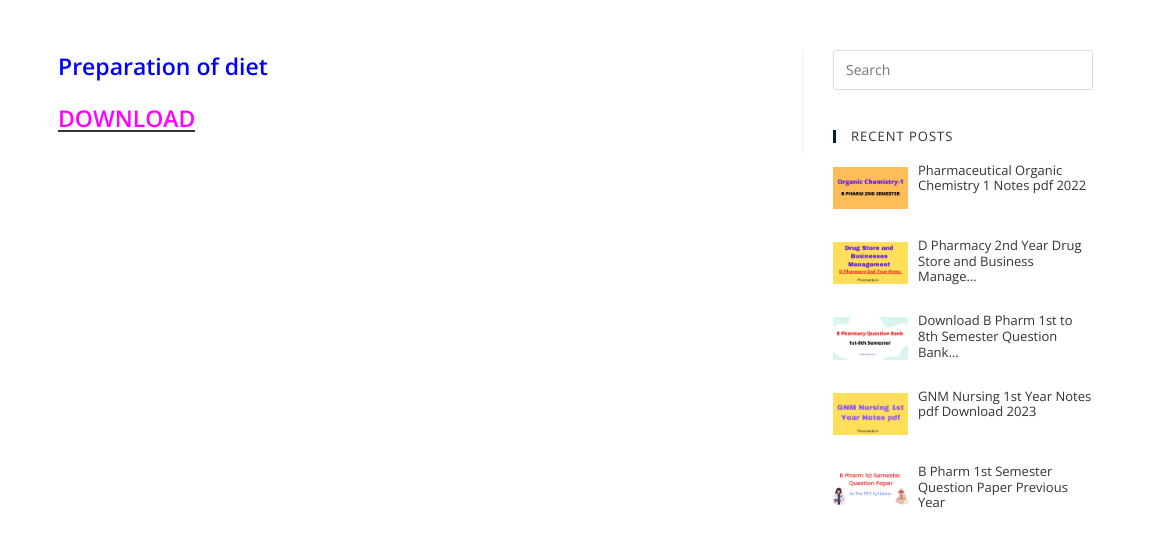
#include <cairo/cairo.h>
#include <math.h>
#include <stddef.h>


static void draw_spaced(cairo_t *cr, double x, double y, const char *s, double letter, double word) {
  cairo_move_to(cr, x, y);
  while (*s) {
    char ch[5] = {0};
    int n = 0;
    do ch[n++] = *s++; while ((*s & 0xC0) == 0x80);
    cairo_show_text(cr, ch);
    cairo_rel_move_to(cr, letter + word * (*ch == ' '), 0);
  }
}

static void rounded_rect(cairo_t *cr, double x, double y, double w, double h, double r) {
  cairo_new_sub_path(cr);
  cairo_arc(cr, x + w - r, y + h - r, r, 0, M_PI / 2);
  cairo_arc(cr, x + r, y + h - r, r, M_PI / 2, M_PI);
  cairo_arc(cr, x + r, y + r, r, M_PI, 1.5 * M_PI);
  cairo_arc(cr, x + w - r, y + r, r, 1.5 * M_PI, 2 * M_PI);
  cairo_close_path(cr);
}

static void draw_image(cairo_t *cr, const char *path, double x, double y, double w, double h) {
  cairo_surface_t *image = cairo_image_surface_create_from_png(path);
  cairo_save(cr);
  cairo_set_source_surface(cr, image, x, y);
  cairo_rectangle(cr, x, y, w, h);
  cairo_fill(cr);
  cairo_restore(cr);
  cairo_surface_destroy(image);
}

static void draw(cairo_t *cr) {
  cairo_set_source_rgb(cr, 1, 1, 1);
  cairo_paint(cr);
  cairo_set_source_rgb(cr, 241 / 255.0, 241 / 255.0, 241 / 255.0);
  cairo_rectangle(cr, 802, 50, 1, 104);
  cairo_fill(cr);
  cairo_set_source_rgb(cr, 51 / 255.0, 51 / 255.0, 51 / 255.0);
  cairo_rectangle(cr, 58, 130, 137, 2);
  cairo_fill(cr);
  rounded_rect(cr, 833.5, 50.5, 259, 39, 2.5);
  cairo_set_source_rgb(cr, 221 / 255.0, 221 / 255.0, 221 / 255.0);
  cairo_set_line_width(cr, 1);
  cairo_stroke(cr);
  cairo_set_source_rgb(cr, 0, 31 / 255.0, 63 / 255.0);
  cairo_rectangle(cr, 833, 130, 3, 13);
  cairo_fill(cr);
  draw_image(cr, "images/1.png", 833, 167, 75, 42);
  draw_image(cr, "images/2.png", 833, 242, 75, 42);
  draw_image(cr, "images/3.png", 833, 317, 75, 43);
  draw_image(cr, "images/4.png", 833, 393, 75, 42);
  draw_image(cr, "images/5.png", 833, 472, 75, 33);
  cairo_select_font_face(cr, "Open Sans SemiBold", CAIRO_FONT_SLANT_NORMAL, CAIRO_FONT_WEIGHT_NORMAL);
  cairo_set_font_size(cr, 23);
  cairo_set_source_rgb(cr, 0, 0, 1);
  cairo_move_to(cr, 58, 75);
  cairo_show_text(cr, "Preparation of diet");
  cairo_set_source_rgb(cr, 1, 0, 1);
  cairo_move_to(cr, 58, 127);
  cairo_show_text(cr, "DOWNLOAD");
  cairo_select_font_face(cr, "Open Sans", CAIRO_FONT_SLANT_NORMAL, CAIRO_FONT_WEIGHT_NORMAL);
  cairo_set_font_size(cr, 14);
  cairo_set_source_rgb(cr, 117 / 255.0, 117 / 255.0, 117 / 255.0);
  cairo_move_to(cr, 846, 75);
  cairo_show_text(cr, "Search");
  cairo_set_font_size(cr, 13);
  cairo_set_source_rgb(cr, 51 / 255.0, 51 / 255.0, 51 / 255.0);
  draw_spaced(cr, 851, 141, "RECENT POSTS", 1, 0);
  cairo_move_to(cr, 918, 175);
  cairo_show_text(cr, "Pharmaceutical Organic");
  cairo_move_to(cr, 918, 190);
  cairo_show_text(cr, "Chemistry 1 Notes pdf 2022");
  cairo_move_to(cr, 918, 250);
  cairo_show_text(cr, "D Pharmacy 2nd Year Drug");
  cairo_move_to(cr, 918, 266);
  cairo_show_text(cr, "Store and Business");
  cairo_move_to(cr, 918, 281);
  cairo_show_text(cr, "Manage…");
  cairo_move_to(cr, 918, 325);
  cairo_show_text(cr, "Download B Pharm 1st to");
  cairo_move_to(cr, 918, 341);
  cairo_show_text(cr, "8th Semester Question");
  cairo_move_to(cr, 918, 357);
  cairo_show_text(cr, "Bank…");
  cairo_move_to(cr, 918, 401);
  cairo_show_text(cr, "GNM Nursing 1st Year Notes");
  cairo_move_to(cr, 918, 416);
  cairo_show_text(cr, "pdf Download 2023");
  cairo_move_to(cr, 918, 476);
  cairo_show_text(cr, "B Pharm 1st Semester");
  cairo_move_to(cr, 918, 492);
  cairo_show_text(cr, "Question Paper Previous");
  cairo_move_to(cr, 918, 507);
  cairo_show_text(cr, "Year");
}

int main(void) {
  cairo_surface_t *surface = cairo_image_surface_create(CAIRO_FORMAT_RGB24, 1151, 549);
  cairo_t *cr = cairo_create(surface);
  cairo_font_options_t *options = cairo_font_options_create();
  cairo_font_options_set_hint_metrics(options, CAIRO_HINT_METRICS_OFF);
  cairo_font_options_set_hint_style(options, CAIRO_HINT_STYLE_NONE);
  cairo_set_font_options(cr, options);
  cairo_set_miter_limit(cr, 4);
  draw(cr);
  cairo_surface_write_to_png(surface, "out.png");
  cairo_font_options_destroy(options);
  cairo_destroy(cr);
  cairo_surface_destroy(surface);
  return 0;
}
